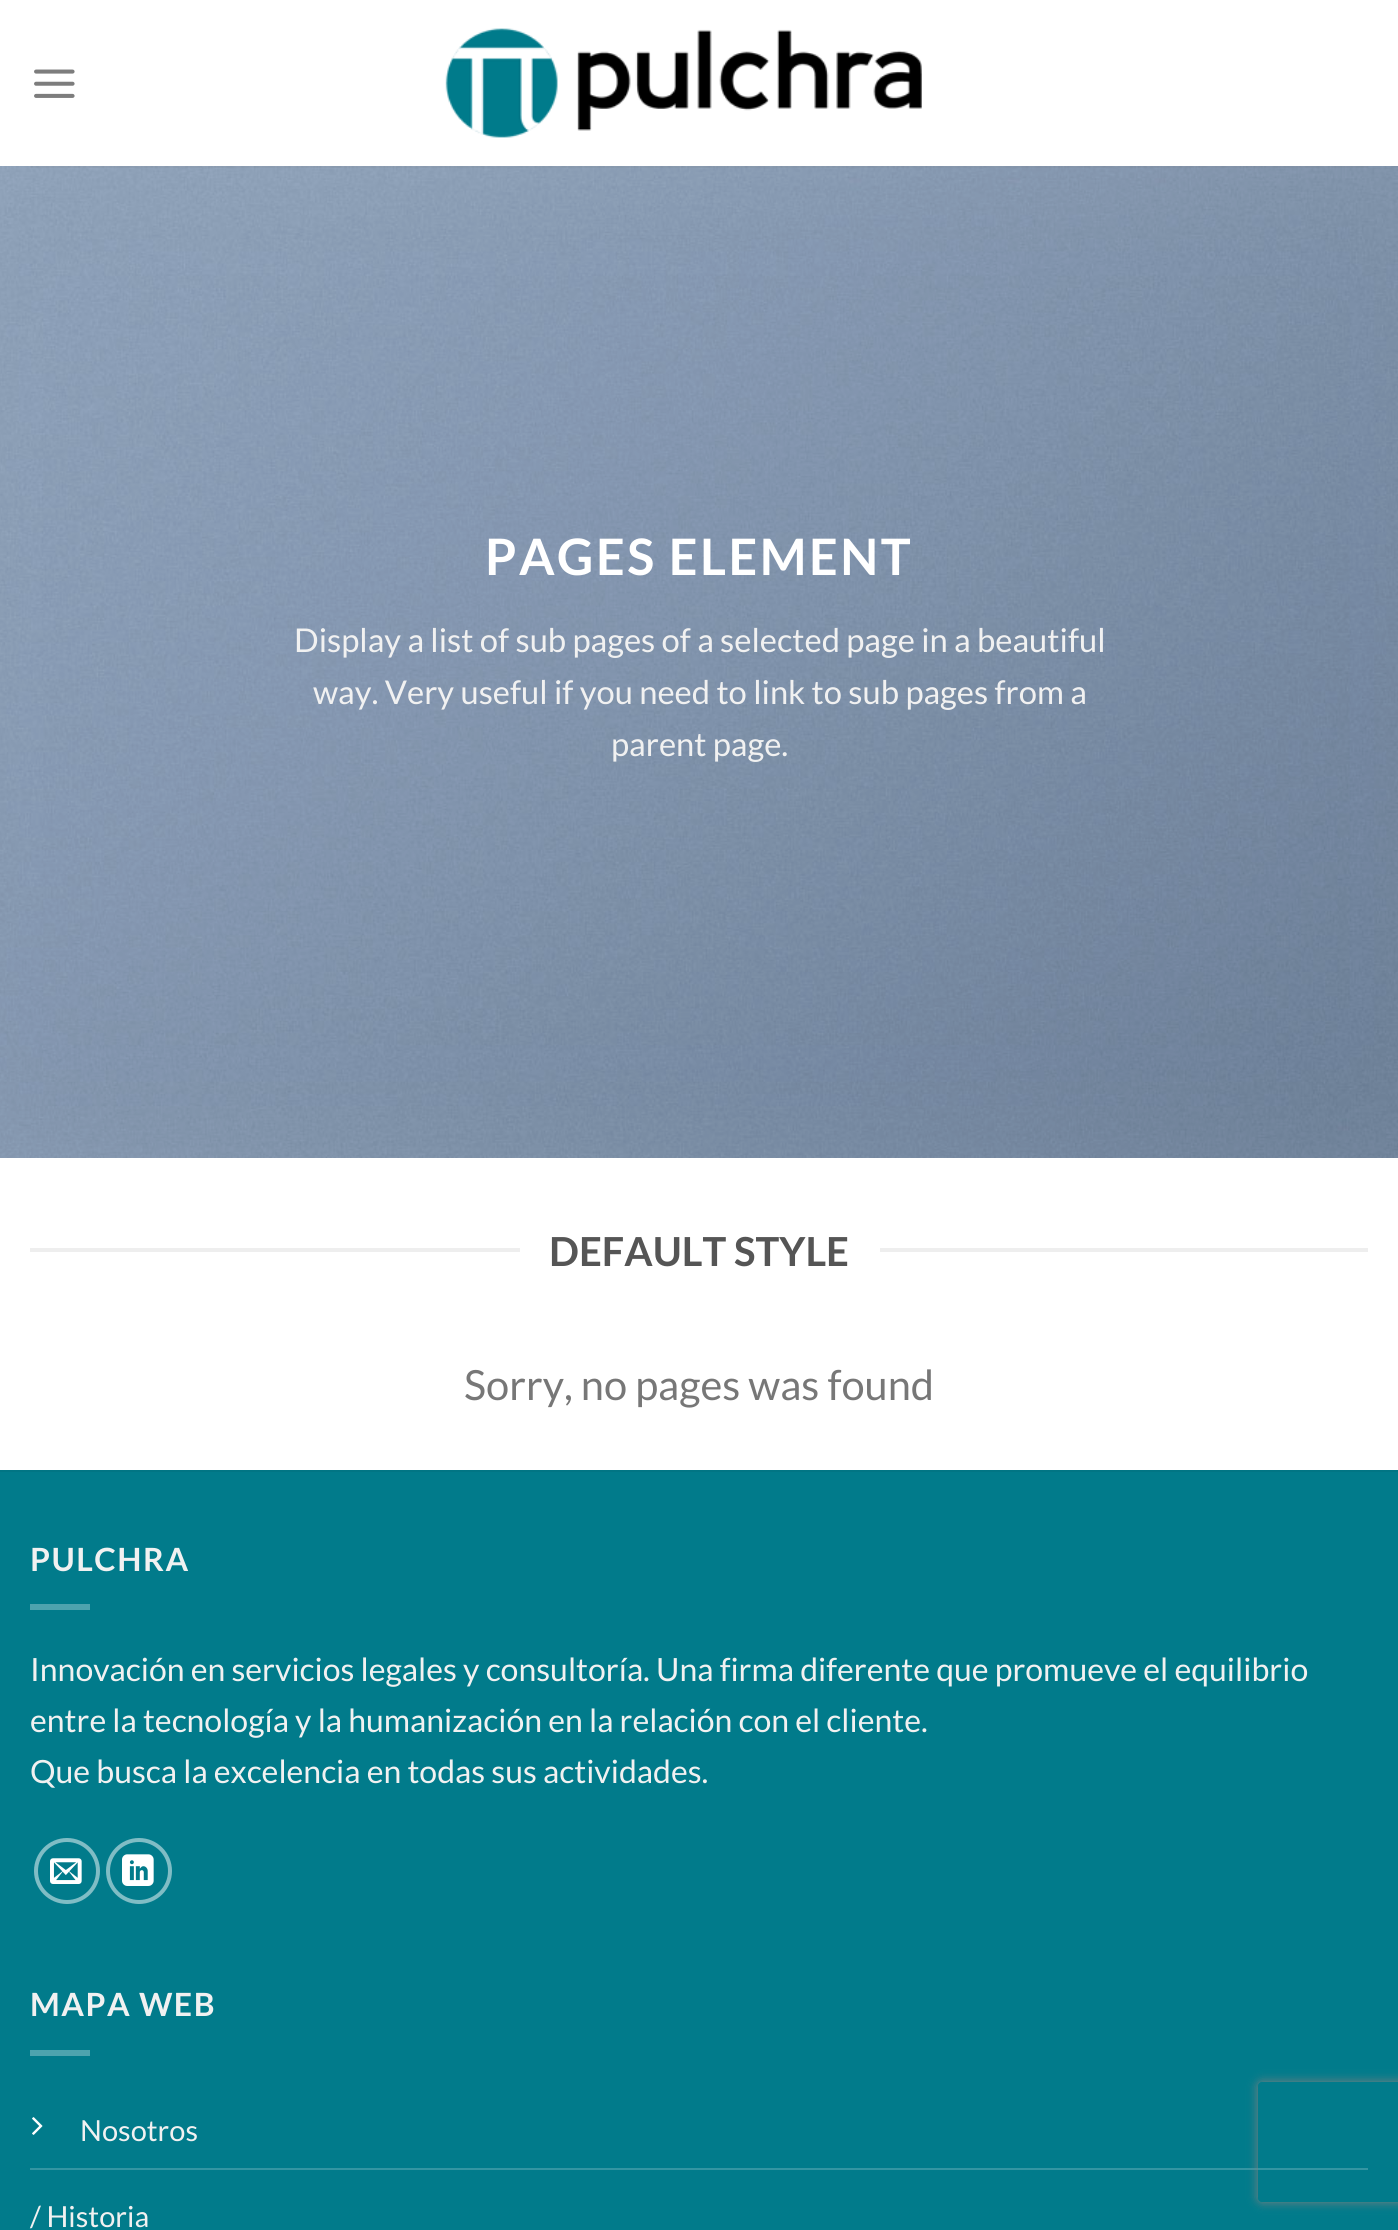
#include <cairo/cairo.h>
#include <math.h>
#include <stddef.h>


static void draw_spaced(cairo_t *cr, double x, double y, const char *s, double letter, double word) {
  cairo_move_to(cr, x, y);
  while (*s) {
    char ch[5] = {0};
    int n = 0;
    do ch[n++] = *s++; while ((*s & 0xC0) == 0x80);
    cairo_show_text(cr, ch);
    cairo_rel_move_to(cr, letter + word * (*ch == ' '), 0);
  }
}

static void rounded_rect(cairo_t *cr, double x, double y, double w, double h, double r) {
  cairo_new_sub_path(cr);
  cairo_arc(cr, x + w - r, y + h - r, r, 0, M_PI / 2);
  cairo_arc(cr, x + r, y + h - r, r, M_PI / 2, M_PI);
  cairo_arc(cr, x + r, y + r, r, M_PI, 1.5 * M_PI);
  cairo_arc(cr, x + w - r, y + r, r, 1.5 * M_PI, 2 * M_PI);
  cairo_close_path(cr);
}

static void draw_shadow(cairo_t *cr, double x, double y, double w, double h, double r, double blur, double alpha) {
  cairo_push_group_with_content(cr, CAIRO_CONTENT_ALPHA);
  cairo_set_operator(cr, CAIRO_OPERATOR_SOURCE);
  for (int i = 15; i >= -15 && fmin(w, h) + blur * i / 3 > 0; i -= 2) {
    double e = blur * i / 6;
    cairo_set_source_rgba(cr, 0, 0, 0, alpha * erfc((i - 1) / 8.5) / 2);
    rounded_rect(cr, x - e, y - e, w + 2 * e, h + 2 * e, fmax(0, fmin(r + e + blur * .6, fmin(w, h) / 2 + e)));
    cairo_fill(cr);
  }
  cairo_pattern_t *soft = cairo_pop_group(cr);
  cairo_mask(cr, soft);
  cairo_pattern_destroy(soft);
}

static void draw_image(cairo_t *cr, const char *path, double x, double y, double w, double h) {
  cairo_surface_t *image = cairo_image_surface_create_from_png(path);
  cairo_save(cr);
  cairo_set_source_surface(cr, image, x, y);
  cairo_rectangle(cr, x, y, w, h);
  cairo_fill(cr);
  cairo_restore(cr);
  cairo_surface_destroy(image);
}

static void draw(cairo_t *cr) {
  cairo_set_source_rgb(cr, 1, 1, 1);
  cairo_paint(cr);
  draw_image(cr, "images/1.png", 34, 69, 41, 29);
  draw_image(cr, "images/2.png", 445, 28, 477, 110);
  draw_image(cr, "images/3.png", 0, 166, 1398, 992);
  cairo_set_source_rgba(cr, 119 / 255.0, 119 / 255.0, 119 / 255.0, 0.1);
  cairo_rectangle(cr, 30, 166, 1338, 2);
  cairo_fill(cr);
  cairo_set_source_rgb(cr, 238 / 255.0, 238 / 255.0, 238 / 255.0);
  cairo_rectangle(cr, 30, 1248, 490, 4);
  cairo_fill(cr);
  cairo_rectangle(cr, 880, 1248, 488, 4);
  cairo_fill(cr);
  cairo_set_source_rgb(cr, 1 / 255.0, 123 / 255.0, 139 / 255.0);
  cairo_rectangle(cr, 0, 1472, 1398, 758);
  cairo_fill(cr);
  cairo_set_source_rgb(cr, 1 / 255.0, 117 / 255.0, 132 / 255.0);
  cairo_rectangle(cr, 0, 1470, 1398, 2);
  cairo_fill(cr);
  cairo_set_source_rgb(cr, 77 / 255.0, 163 / 255.0, 174 / 255.0);
  cairo_rectangle(cr, 30, 1604, 60, 6);
  cairo_fill(cr);
  cairo_arc(cr, 67, 1871, 31, 0, 2 * M_PI);
  cairo_set_source_rgb(cr, 128 / 255.0, 189 / 255.0, 197 / 255.0);
  cairo_set_line_width(cr, 4);
  cairo_stroke(cr);
  draw_image(cr, "images/4.png", 50, 1858, 32, 26);
  cairo_arc(cr, 139, 1871, 31, 0, 2 * M_PI);
  cairo_stroke(cr);
  draw_image(cr, "images/5.png", 122, 1854, 32, 32);
  cairo_set_source_rgb(cr, 77 / 255.0, 163 / 255.0, 174 / 255.0);
  cairo_rectangle(cr, 30, 2050, 60, 6);
  cairo_fill(cr);
  cairo_set_source_rgb(cr, 52 / 255.0, 149 / 255.0, 162 / 255.0);
  cairo_rectangle(cr, 30, 2168, 1338, 2);
  cairo_fill(cr);
  draw_image(cr, "images/6.png", 32, 2117, 11, 18);
  cairo_save(cr);
  cairo_set_fill_rule(cr, CAIRO_FILL_RULE_EVEN_ODD);
  cairo_new_path(cr);
  cairo_move_to(cr, 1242, 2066);
  cairo_line_to(cr, 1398, 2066);
  cairo_line_to(cr, 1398, 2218);
  cairo_line_to(cr, 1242, 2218);
  cairo_close_path(cr);
  cairo_move_to(cr, 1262, 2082);
  cairo_line_to(cr, 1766, 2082);
  cairo_curve_to(cr, 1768, 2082, 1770, 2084, 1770, 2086);
  cairo_line_to(cr, 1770, 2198);
  cairo_curve_to(cr, 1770, 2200, 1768, 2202, 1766, 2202);
  cairo_line_to(cr, 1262, 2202);
  cairo_curve_to(cr, 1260, 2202, 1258, 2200, 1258, 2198);
  cairo_line_to(cr, 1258, 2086);
  cairo_curve_to(cr, 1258, 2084, 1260, 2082, 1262, 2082);
  cairo_close_path(cr);
  cairo_clip(cr);
  cairo_set_source_rgb(cr, 128 / 255.0, 128 / 255.0, 128 / 255.0);
  draw_shadow(cr, 1258, 2082, 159, 120, 4, 5, 1);
  cairo_restore(cr);
  cairo_select_font_face(cr, "Lato", CAIRO_FONT_SLANT_NORMAL, CAIRO_FONT_WEIGHT_BOLD);
  cairo_set_font_size(cr, 50.25);
  cairo_set_source_rgb(cr, 1, 1, 1);
  draw_spaced(cr, 485, 575, "PAGES ELEMENT", 2.5, 0);
  cairo_select_font_face(cr, "Lato", CAIRO_FONT_SLANT_NORMAL, CAIRO_FONT_WEIGHT_NORMAL);
  cairo_set_font_size(cr, 32.75);
  cairo_set_source_rgb(cr, 241 / 255.0, 241 / 255.0, 241 / 255.0);
  cairo_move_to(cr, 294, 652);
  cairo_show_text(cr, "Display a list of sub pages of a selected page in a beautiful");
  cairo_move_to(cr, 313, 704);
  cairo_show_text(cr, "way. Very useful if you need to link to sub pages from a");
  cairo_move_to(cr, 611, 756);
  cairo_show_text(cr, "parent page.");
  cairo_select_font_face(cr, "Lato", CAIRO_FONT_SLANT_NORMAL, CAIRO_FONT_WEIGHT_BOLD);
  cairo_set_font_size(cr, 40);
  cairo_set_source_rgb(cr, 85 / 255.0, 85 / 255.0, 85 / 255.0);
  cairo_move_to(cr, 549, 1266);
  cairo_show_text(cr, "DEFAULT STYLE");
  cairo_select_font_face(cr, "Lato", CAIRO_FONT_SLANT_NORMAL, CAIRO_FONT_WEIGHT_NORMAL);
  cairo_set_font_size(cr, 41.6);
  cairo_set_source_rgb(cr, 119 / 255.0, 119 / 255.0, 119 / 255.0);
  cairo_move_to(cr, 464, 1400);
  cairo_show_text(cr, "Sorry, no pages was found");
  cairo_select_font_face(cr, "Lato", CAIRO_FONT_SLANT_NORMAL, CAIRO_FONT_WEIGHT_BOLD);
  cairo_set_font_size(cr, 32);
  cairo_set_source_rgb(cr, 241 / 255.0, 241 / 255.0, 241 / 255.0);
  draw_spaced(cr, 30, 1571, "PULCHRA", 1.5, 0);
  cairo_select_font_face(cr, "Lato", CAIRO_FONT_SLANT_NORMAL, CAIRO_FONT_WEIGHT_NORMAL);
  cairo_move_to(cr, 30, 1681);
  cairo_show_text(cr, "Innovación en servicios legales y consultoría. Una firma diferente que promueve el equilibrio");
  cairo_move_to(cr, 30, 1732);
  cairo_show_text(cr, "entre la tecnología y la humanización en la relación con el cliente.");
  cairo_move_to(cr, 30, 1783);
  cairo_show_text(cr, "Que busca la excelencia en todas sus actividades.");
  cairo_select_font_face(cr, "Lato", CAIRO_FONT_SLANT_NORMAL, CAIRO_FONT_WEIGHT_BOLD);
  draw_spaced(cr, 30, 2016, "MAPA WEB", 1.5, 0);
  cairo_select_font_face(cr, "Lato", CAIRO_FONT_SLANT_NORMAL, CAIRO_FONT_WEIGHT_NORMAL);
  cairo_set_font_size(cr, 29);
  cairo_move_to(cr, 80, 2141);
  cairo_show_text(cr, "Nosotros");
  cairo_move_to(cr, 30, 2227);
  cairo_show_text(cr, "/ Historia");
}

int main(void) {
  cairo_surface_t *surface = cairo_image_surface_create(CAIRO_FORMAT_RGB24, 1398, 2230);
  cairo_t *cr = cairo_create(surface);
  cairo_font_options_t *options = cairo_font_options_create();
  cairo_font_options_set_hint_metrics(options, CAIRO_HINT_METRICS_OFF);
  cairo_font_options_set_hint_style(options, CAIRO_HINT_STYLE_NONE);
  cairo_set_font_options(cr, options);
  cairo_set_miter_limit(cr, 4);
  draw(cr);
  cairo_surface_write_to_png(surface, "out.png");
  cairo_font_options_destroy(options);
  cairo_destroy(cr);
  cairo_surface_destroy(surface);
  return 0;
}
